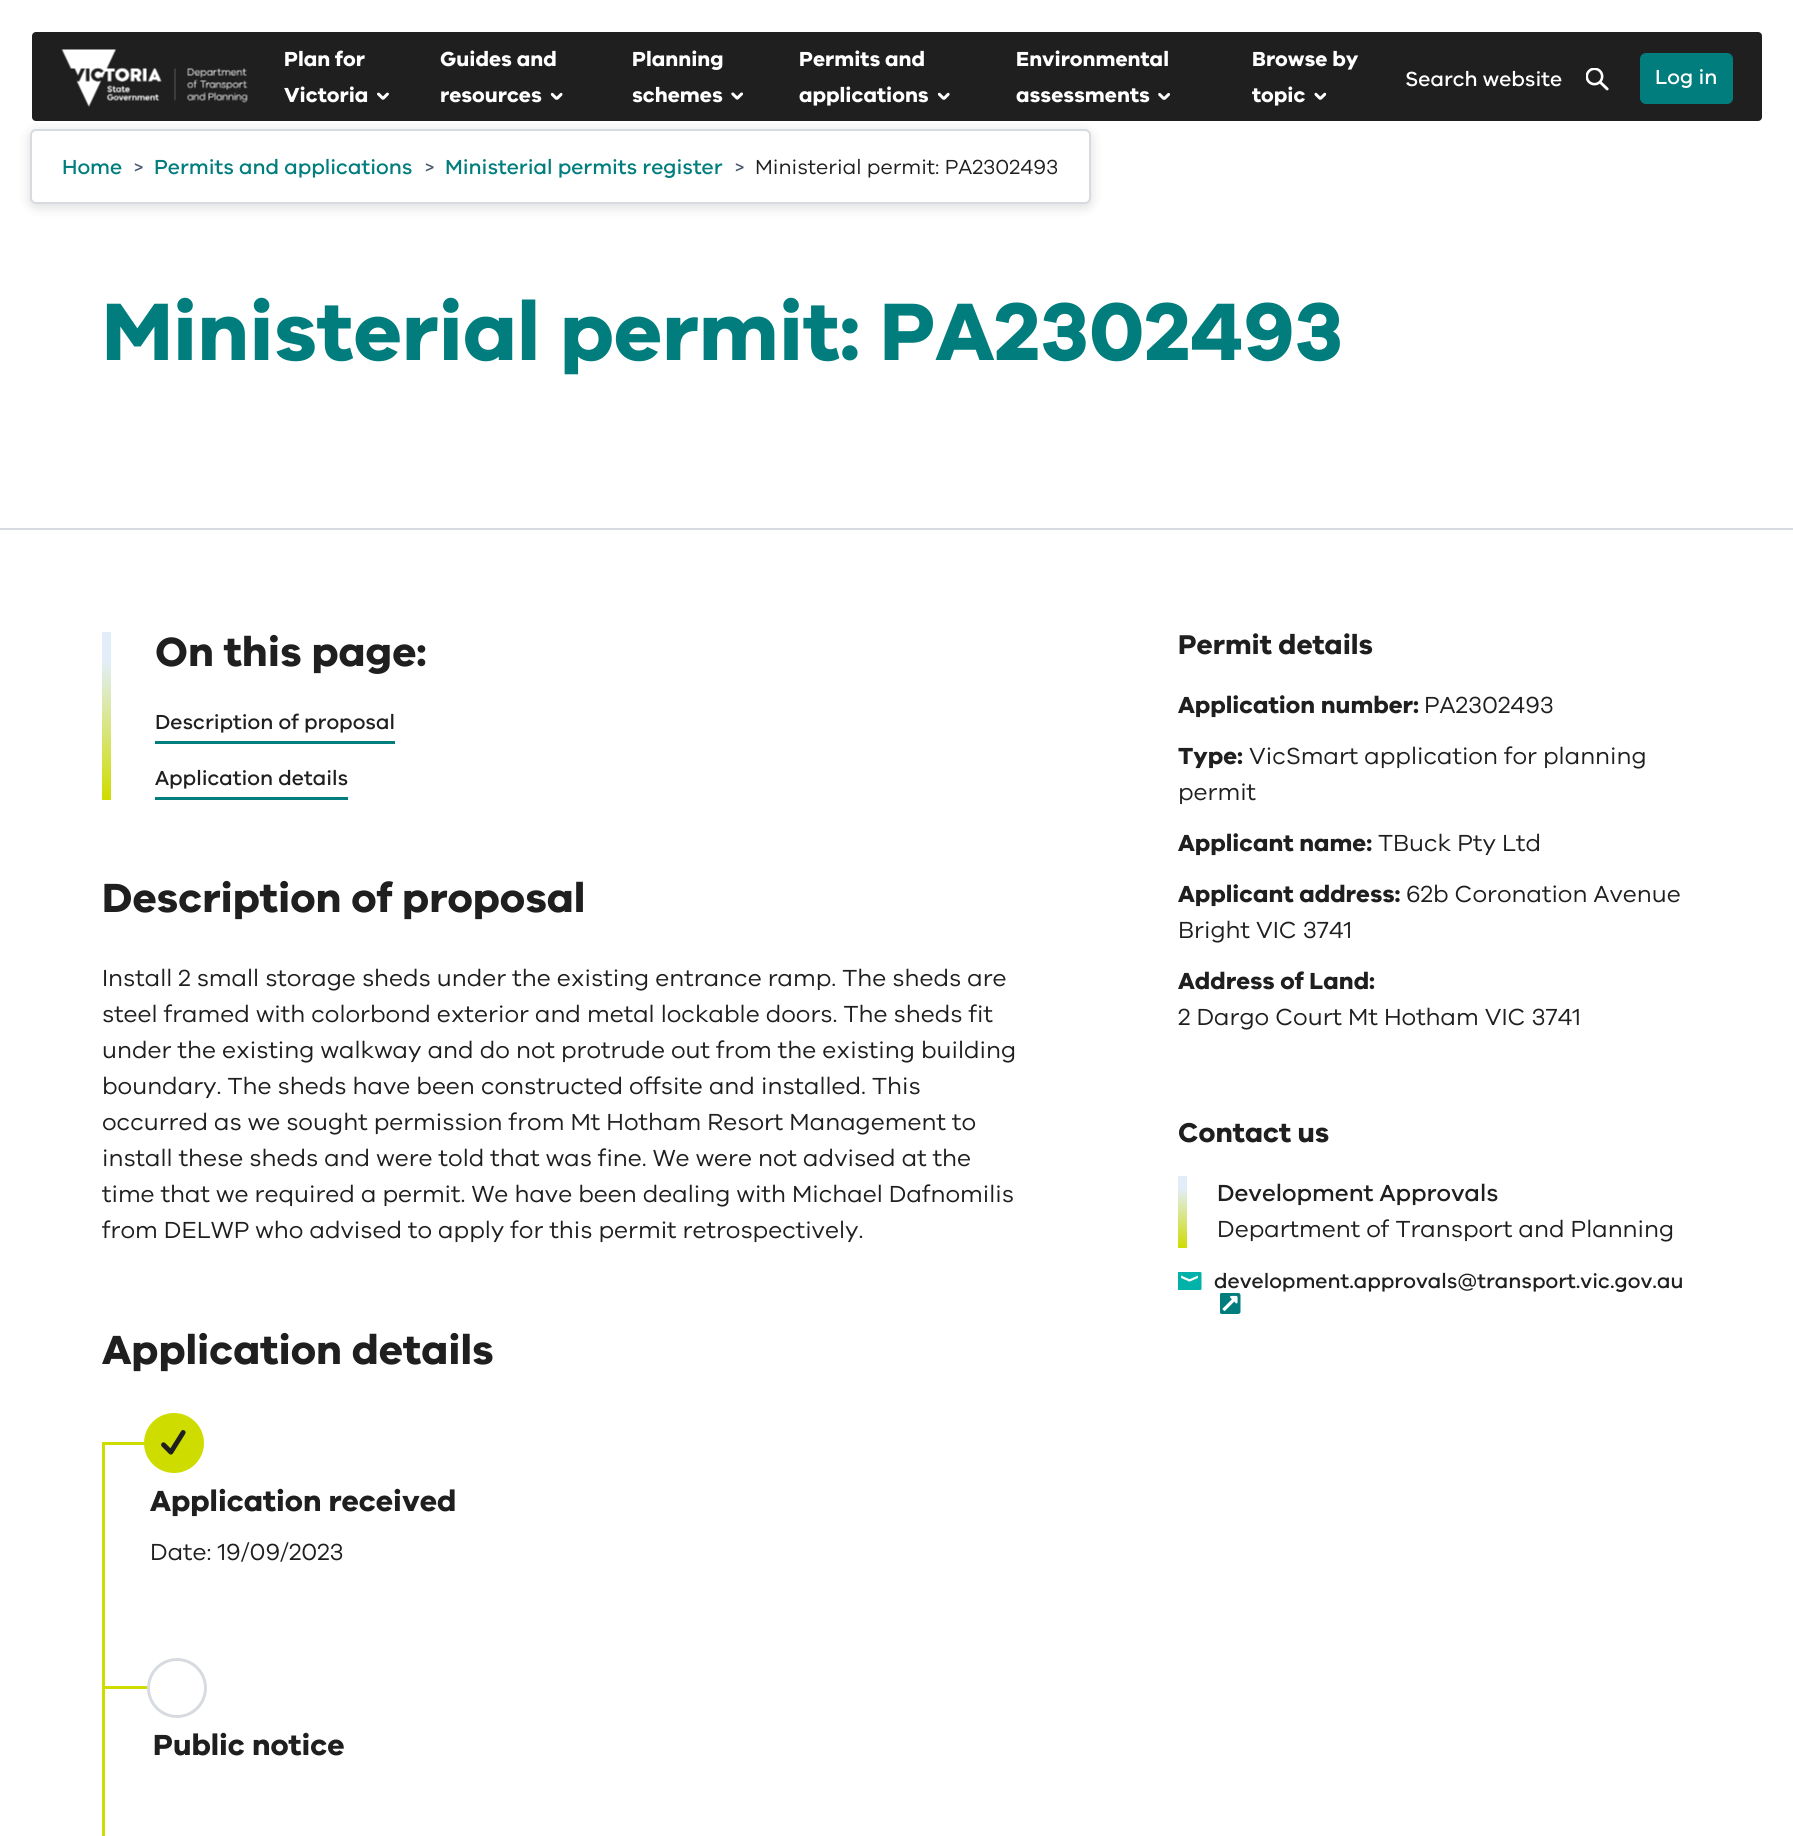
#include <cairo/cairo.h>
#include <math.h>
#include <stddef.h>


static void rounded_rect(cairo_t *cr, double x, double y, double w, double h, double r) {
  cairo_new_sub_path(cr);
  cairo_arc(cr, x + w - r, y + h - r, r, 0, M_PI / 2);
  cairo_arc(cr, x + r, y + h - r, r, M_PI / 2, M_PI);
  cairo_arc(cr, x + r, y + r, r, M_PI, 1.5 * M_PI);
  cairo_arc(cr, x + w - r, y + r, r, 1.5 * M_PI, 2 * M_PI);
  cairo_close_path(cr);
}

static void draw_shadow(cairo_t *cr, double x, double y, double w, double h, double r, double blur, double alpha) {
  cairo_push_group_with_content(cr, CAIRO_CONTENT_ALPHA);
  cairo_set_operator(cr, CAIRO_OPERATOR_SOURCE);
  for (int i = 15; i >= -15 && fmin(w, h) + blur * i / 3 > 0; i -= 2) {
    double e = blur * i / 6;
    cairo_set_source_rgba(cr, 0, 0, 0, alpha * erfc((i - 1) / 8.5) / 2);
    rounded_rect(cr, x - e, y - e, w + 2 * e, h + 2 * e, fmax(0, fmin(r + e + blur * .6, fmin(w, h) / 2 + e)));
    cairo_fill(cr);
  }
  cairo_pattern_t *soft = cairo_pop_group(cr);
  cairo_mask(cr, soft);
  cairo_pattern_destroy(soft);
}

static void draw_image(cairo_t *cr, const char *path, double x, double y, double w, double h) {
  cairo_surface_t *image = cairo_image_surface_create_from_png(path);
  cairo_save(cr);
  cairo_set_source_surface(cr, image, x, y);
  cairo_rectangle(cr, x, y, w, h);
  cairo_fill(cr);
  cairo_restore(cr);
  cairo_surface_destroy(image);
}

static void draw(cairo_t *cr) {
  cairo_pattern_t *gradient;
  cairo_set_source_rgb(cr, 1, 1, 1);
  cairo_paint(cr);
  cairo_set_source_rgb(cr, 0, 0, 0);
  draw_shadow(cr, 30, 132, 1061, 75, 6, 6, 0.14);
  cairo_set_source_rgb(cr, 31 / 255.0, 31 / 255.0, 31 / 255.0);
  rounded_rect(cr, 31, 31, 1732, 91, 5);
  cairo_fill_preserve(cr);
  cairo_set_source_rgb(cr, 1, 1, 1);
  cairo_stroke(cr);
  draw_image(cr, "images/1.png", 61, 49, 187, 58);
  draw_image(cr, "images/2.png", 377, 92, 12, 8);
  draw_image(cr, "images/3.png", 550, 92, 13, 8);
  draw_image(cr, "images/4.png", 731, 92, 12, 8);
  draw_image(cr, "images/5.png", 937, 92, 13, 8);
  draw_image(cr, "images/6.png", 1158, 92, 12, 8);
  draw_image(cr, "images/7.png", 1314, 92, 13, 8);
  draw_image(cr, "images/8.png", 1586, 68, 23, 23);
  cairo_set_source_rgb(cr, 1 / 255.0, 125 / 255.0, 125 / 255.0);
  rounded_rect(cr, 1640, 53, 93, 51, 6);
  cairo_fill(cr);
  cairo_set_source_rgb(cr, 1, 1, 1);
  rounded_rect(cr, 31, 130, 1059, 73, 5);
  cairo_fill_preserve(cr);
  cairo_set_source_rgb(cr, 215 / 255.0, 219 / 255.0, 224 / 255.0);
  cairo_stroke(cr);
  cairo_rectangle(cr, 0, 528, 1793, 2);
  cairo_fill(cr);
  gradient = cairo_pattern_create_linear(107, 632, 107, 800);
  cairo_pattern_add_color_stop_rgba(gradient, 0.17, 225 / 255.0, 238 / 255.0, 249 / 255.0, 1);
  cairo_pattern_add_color_stop_rgba(gradient, 1, 206 / 255.0, 220 / 255.0, 0, 1);
  cairo_set_source(cr, gradient);
  cairo_pattern_destroy(gradient);
  cairo_rectangle(cr, 102, 632, 9, 168);
  cairo_fill(cr);
  cairo_set_source_rgb(cr, 1 / 255.0, 125 / 255.0, 125 / 255.0);
  cairo_rectangle(cr, 155, 741, 240, 3);
  cairo_fill(cr);
  cairo_rectangle(cr, 155, 797, 193, 3);
  cairo_fill(cr);
  cairo_set_source_rgb(cr, 206 / 255.0, 220 / 255.0, 0);
  cairo_rectangle(cr, 102, 1442, 42, 3);
  cairo_fill(cr);
  cairo_arc(cr, 174, 1443, 30, 0, 2 * M_PI);
  cairo_fill(cr);
  draw_image(cr, "images/9.png", 161, 1430, 25, 25);
  cairo_rectangle(cr, 102, 1442, 3, 394);
  cairo_fill(cr);
  cairo_rectangle(cr, 105, 1686, 42, 3);
  cairo_fill(cr);
  cairo_arc(cr, 177, 1688, 28.5, 0, 2 * M_PI);
  cairo_set_source_rgb(cr, 215 / 255.0, 219 / 255.0, 224 / 255.0);
  cairo_set_line_width(cr, 3);
  cairo_stroke(cr);
  gradient = cairo_pattern_create_linear(1182, 1176, 1182, 1248);
  cairo_pattern_add_color_stop_rgba(gradient, 0.17, 225 / 255.0, 238 / 255.0, 249 / 255.0, 1);
  cairo_pattern_add_color_stop_rgba(gradient, 1, 206 / 255.0, 220 / 255.0, 0, 1);
  cairo_set_source(cr, gradient);
  cairo_pattern_destroy(gradient);
  cairo_rectangle(cr, 1178, 1176, 9, 72);
  cairo_fill(cr);
  draw_image(cr, "images/10.png", 1178, 1272, 24, 18);
  draw_image(cr, "images/11.png", 1220, 1293, 21, 21);
  cairo_select_font_face(cr, "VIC", CAIRO_FONT_SLANT_NORMAL, CAIRO_FONT_WEIGHT_BOLD);
  cairo_set_font_size(cr, 21);
  cairo_set_source_rgb(cr, 1, 1, 1);
  cairo_move_to(cr, 284, 66);
  cairo_show_text(cr, "Plan for");
  cairo_move_to(cr, 284, 102);
  cairo_show_text(cr, "Victoria");
  cairo_move_to(cr, 440, 66);
  cairo_show_text(cr, "Guides and");
  cairo_move_to(cr, 440, 102);
  cairo_show_text(cr, "resources");
  cairo_move_to(cr, 632, 66);
  cairo_show_text(cr, "Planning");
  cairo_move_to(cr, 632, 102);
  cairo_show_text(cr, "schemes");
  cairo_move_to(cr, 799, 66);
  cairo_show_text(cr, "Permits and");
  cairo_move_to(cr, 799, 102);
  cairo_show_text(cr, "applications");
  cairo_move_to(cr, 1016, 66);
  cairo_show_text(cr, "Environmental");
  cairo_move_to(cr, 1016, 102);
  cairo_show_text(cr, "assessments");
  cairo_move_to(cr, 1252, 66);
  cairo_show_text(cr, "Browse by");
  cairo_move_to(cr, 1252, 102);
  cairo_show_text(cr, "topic");
  cairo_select_font_face(cr, "VIC Medium", CAIRO_FONT_SLANT_NORMAL, CAIRO_FONT_WEIGHT_NORMAL);
  cairo_move_to(cr, 1405, 86);
  cairo_show_text(cr, "Search website");
  cairo_move_to(cr, 1655, 84);
  cairo_show_text(cr, "Log in");
  cairo_set_source_rgb(cr, 1 / 255.0, 125 / 255.0, 125 / 255.0);
  cairo_move_to(cr, 62, 174);
  cairo_show_text(cr, "Home");
  cairo_select_font_face(cr, "VIC", CAIRO_FONT_SLANT_NORMAL, CAIRO_FONT_WEIGHT_NORMAL);
  cairo_set_source_rgb(cr, 70 / 255.0, 88 / 255.0, 112 / 255.0);
  cairo_move_to(cr, 134, 174);
  cairo_show_text(cr, ">");
  cairo_select_font_face(cr, "VIC Medium", CAIRO_FONT_SLANT_NORMAL, CAIRO_FONT_WEIGHT_NORMAL);
  cairo_set_source_rgb(cr, 1 / 255.0, 125 / 255.0, 125 / 255.0);
  cairo_move_to(cr, 154, 174);
  cairo_show_text(cr, "Permits and applications");
  cairo_select_font_face(cr, "VIC", CAIRO_FONT_SLANT_NORMAL, CAIRO_FONT_WEIGHT_NORMAL);
  cairo_set_source_rgb(cr, 70 / 255.0, 88 / 255.0, 112 / 255.0);
  cairo_move_to(cr, 425, 174);
  cairo_show_text(cr, ">");
  cairo_select_font_face(cr, "VIC Medium", CAIRO_FONT_SLANT_NORMAL, CAIRO_FONT_WEIGHT_NORMAL);
  cairo_set_source_rgb(cr, 1 / 255.0, 125 / 255.0, 125 / 255.0);
  cairo_move_to(cr, 445, 174);
  cairo_show_text(cr, "Ministerial permits register");
  cairo_select_font_face(cr, "VIC", CAIRO_FONT_SLANT_NORMAL, CAIRO_FONT_WEIGHT_NORMAL);
  cairo_set_source_rgb(cr, 70 / 255.0, 88 / 255.0, 112 / 255.0);
  cairo_move_to(cr, 735, 174);
  cairo_show_text(cr, ">");
  cairo_set_source_rgb(cr, 31 / 255.0, 31 / 255.0, 31 / 255.0);
  cairo_move_to(cr, 755, 174);
  cairo_show_text(cr, "Ministerial permit: PA2302493");
  cairo_select_font_face(cr, "VIC", CAIRO_FONT_SLANT_NORMAL, CAIRO_FONT_WEIGHT_BOLD);
  cairo_set_font_size(cr, 84);
  cairo_set_source_rgb(cr, 1 / 255.0, 125 / 255.0, 125 / 255.0);
  cairo_move_to(cr, 102, 360);
  cairo_show_text(cr, "Ministerial permit: PA2302493");
  cairo_set_font_size(cr, 42);
  cairo_set_source_rgb(cr, 31 / 255.0, 31 / 255.0, 31 / 255.0);
  cairo_move_to(cr, 155, 666);
  cairo_show_text(cr, "On this page:");
  cairo_select_font_face(cr, "VIC Medium", CAIRO_FONT_SLANT_NORMAL, CAIRO_FONT_WEIGHT_NORMAL);
  cairo_set_font_size(cr, 21);
  cairo_move_to(cr, 155, 729);
  cairo_show_text(cr, "Description of proposal");
  cairo_move_to(cr, 155, 785);
  cairo_show_text(cr, "Application details");
  cairo_select_font_face(cr, "VIC", CAIRO_FONT_SLANT_NORMAL, CAIRO_FONT_WEIGHT_BOLD);
  cairo_set_font_size(cr, 42);
  cairo_move_to(cr, 102, 912);
  cairo_show_text(cr, "Description of proposal");
  cairo_select_font_face(cr, "VIC", CAIRO_FONT_SLANT_NORMAL, CAIRO_FONT_WEIGHT_NORMAL);
  cairo_set_font_size(cr, 24);
  cairo_move_to(cr, 102, 986);
  cairo_show_text(cr, "Install 2 small storage sheds under the existing entrance ramp. The sheds are");
  cairo_move_to(cr, 102, 1022);
  cairo_show_text(cr, "steel framed with colorbond exterior and metal lockable doors. The sheds fit");
  cairo_move_to(cr, 102, 1058);
  cairo_show_text(cr, "under the existing walkway and do not protrude out from the existing building");
  cairo_move_to(cr, 102, 1094);
  cairo_show_text(cr, "boundary. The sheds have been constructed offsite and installed. This");
  cairo_move_to(cr, 102, 1130);
  cairo_show_text(cr, "occurred as we sought permission from Mt Hotham Resort Management to");
  cairo_move_to(cr, 102, 1166);
  cairo_show_text(cr, "install these sheds and were told that was fine. We were not advised at the");
  cairo_move_to(cr, 102, 1202);
  cairo_show_text(cr, "time that we required a permit. We have been dealing with Michael Dafnomilis");
  cairo_move_to(cr, 102, 1238);
  cairo_show_text(cr, "from DELWP who advised to apply for this permit retrospectively.");
  cairo_select_font_face(cr, "VIC", CAIRO_FONT_SLANT_NORMAL, CAIRO_FONT_WEIGHT_BOLD);
  cairo_set_font_size(cr, 42);
  cairo_move_to(cr, 102, 1364);
  cairo_show_text(cr, "Application details");
  cairo_set_font_size(cr, 30);
  cairo_move_to(cr, 150, 1511);
  cairo_show_text(cr, "Application received");
  cairo_select_font_face(cr, "VIC", CAIRO_FONT_SLANT_NORMAL, CAIRO_FONT_WEIGHT_NORMAL);
  cairo_set_font_size(cr, 24);
  cairo_move_to(cr, 150, 1560);
  cairo_show_text(cr, "Date: 19/09/2023");
  cairo_select_font_face(cr, "VIC", CAIRO_FONT_SLANT_NORMAL, CAIRO_FONT_WEIGHT_BOLD);
  cairo_set_font_size(cr, 30);
  cairo_move_to(cr, 153, 1755);
  cairo_show_text(cr, "Public notice");
  cairo_set_font_size(cr, 28);
  cairo_move_to(cr, 1178, 654);
  cairo_show_text(cr, "Permit details");
  cairo_set_font_size(cr, 24);
  cairo_move_to(cr, 1178, 713);
  cairo_show_text(cr, "Application number:");
  cairo_select_font_face(cr, "VIC", CAIRO_FONT_SLANT_NORMAL, CAIRO_FONT_WEIGHT_NORMAL);
  cairo_move_to(cr, 1424, 713);
  cairo_show_text(cr, "PA2302493");
  cairo_select_font_face(cr, "VIC", CAIRO_FONT_SLANT_NORMAL, CAIRO_FONT_WEIGHT_BOLD);
  cairo_move_to(cr, 1178, 764);
  cairo_show_text(cr, "Type:");
  cairo_select_font_face(cr, "VIC", CAIRO_FONT_SLANT_NORMAL, CAIRO_FONT_WEIGHT_NORMAL);
  cairo_move_to(cr, 1249, 764);
  cairo_show_text(cr, "VicSmart application for planning");
  cairo_move_to(cr, 1178, 800);
  cairo_show_text(cr, "permit");
  cairo_select_font_face(cr, "VIC", CAIRO_FONT_SLANT_NORMAL, CAIRO_FONT_WEIGHT_BOLD);
  cairo_move_to(cr, 1178, 851);
  cairo_show_text(cr, "Applicant name:");
  cairo_select_font_face(cr, "VIC", CAIRO_FONT_SLANT_NORMAL, CAIRO_FONT_WEIGHT_NORMAL);
  cairo_move_to(cr, 1378, 851);
  cairo_show_text(cr, "TBuck Pty Ltd");
  cairo_select_font_face(cr, "VIC", CAIRO_FONT_SLANT_NORMAL, CAIRO_FONT_WEIGHT_BOLD);
  cairo_move_to(cr, 1178, 902);
  cairo_show_text(cr, "Applicant address:");
  cairo_select_font_face(cr, "VIC", CAIRO_FONT_SLANT_NORMAL, CAIRO_FONT_WEIGHT_NORMAL);
  cairo_move_to(cr, 1406, 902);
  cairo_show_text(cr, "62b Coronation Avenue");
  cairo_move_to(cr, 1178, 938);
  cairo_show_text(cr, "Bright VIC 3741");
  cairo_select_font_face(cr, "VIC", CAIRO_FONT_SLANT_NORMAL, CAIRO_FONT_WEIGHT_BOLD);
  cairo_move_to(cr, 1178, 989);
  cairo_show_text(cr, "Address of Land:");
  cairo_select_font_face(cr, "VIC", CAIRO_FONT_SLANT_NORMAL, CAIRO_FONT_WEIGHT_NORMAL);
  cairo_move_to(cr, 1178, 1025);
  cairo_show_text(cr, "2 Dargo Court Mt Hotham VIC 3741");
  cairo_select_font_face(cr, "VIC", CAIRO_FONT_SLANT_NORMAL, CAIRO_FONT_WEIGHT_BOLD);
  cairo_set_font_size(cr, 28);
  cairo_move_to(cr, 1178, 1142);
  cairo_show_text(cr, "Contact us");
  cairo_select_font_face(cr, "VIC Medium", CAIRO_FONT_SLANT_NORMAL, CAIRO_FONT_WEIGHT_NORMAL);
  cairo_set_font_size(cr, 24);
  cairo_move_to(cr, 1217, 1201);
  cairo_show_text(cr, "Development Approvals");
  cairo_select_font_face(cr, "VIC", CAIRO_FONT_SLANT_NORMAL, CAIRO_FONT_WEIGHT_NORMAL);
  cairo_move_to(cr, 1217, 1237);
  cairo_show_text(cr, "Department of Transport and Planning");
  cairo_select_font_face(cr, "VIC Medium", CAIRO_FONT_SLANT_NORMAL, CAIRO_FONT_WEIGHT_NORMAL);
  cairo_set_font_size(cr, 21);
  cairo_move_to(cr, 1214, 1288);
  cairo_show_text(cr, "development.approvals@transport.vic.gov.au");
}

int main(void) {
  cairo_surface_t *surface = cairo_image_surface_create(CAIRO_FORMAT_RGB24, 1793, 1836);
  cairo_t *cr = cairo_create(surface);
  cairo_font_options_t *options = cairo_font_options_create();
  cairo_font_options_set_hint_metrics(options, CAIRO_HINT_METRICS_OFF);
  cairo_font_options_set_hint_style(options, CAIRO_HINT_STYLE_NONE);
  cairo_set_font_options(cr, options);
  cairo_set_miter_limit(cr, 4);
  draw(cr);
  cairo_surface_write_to_png(surface, "out.png");
  cairo_font_options_destroy(options);
  cairo_destroy(cr);
  cairo_surface_destroy(surface);
  return 0;
}
